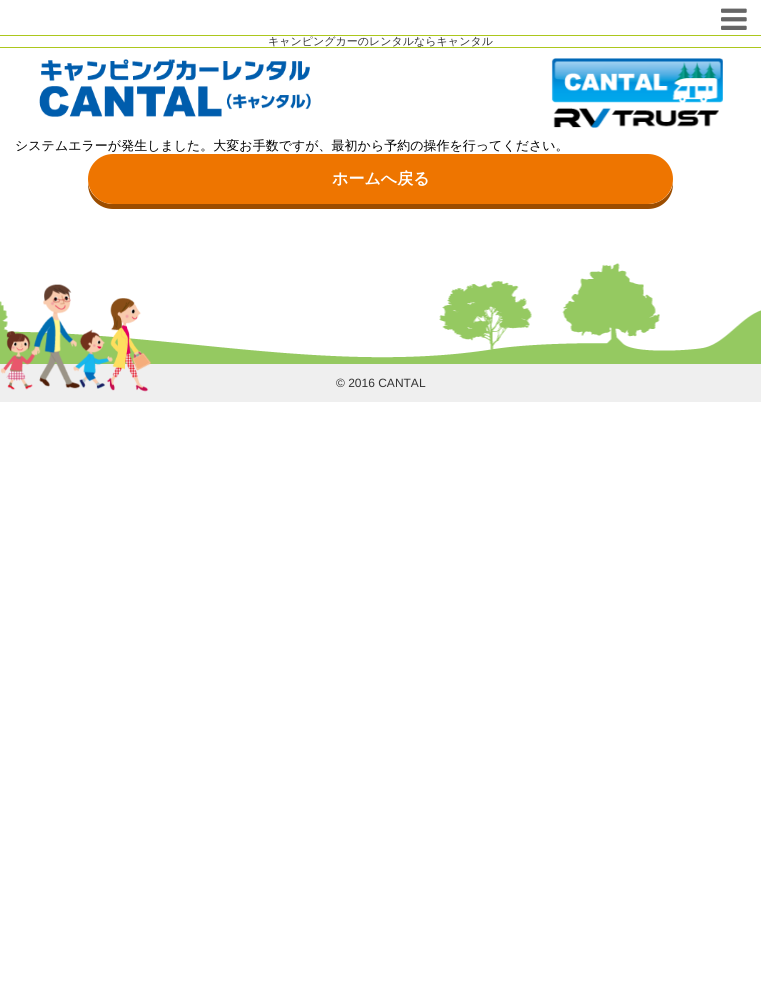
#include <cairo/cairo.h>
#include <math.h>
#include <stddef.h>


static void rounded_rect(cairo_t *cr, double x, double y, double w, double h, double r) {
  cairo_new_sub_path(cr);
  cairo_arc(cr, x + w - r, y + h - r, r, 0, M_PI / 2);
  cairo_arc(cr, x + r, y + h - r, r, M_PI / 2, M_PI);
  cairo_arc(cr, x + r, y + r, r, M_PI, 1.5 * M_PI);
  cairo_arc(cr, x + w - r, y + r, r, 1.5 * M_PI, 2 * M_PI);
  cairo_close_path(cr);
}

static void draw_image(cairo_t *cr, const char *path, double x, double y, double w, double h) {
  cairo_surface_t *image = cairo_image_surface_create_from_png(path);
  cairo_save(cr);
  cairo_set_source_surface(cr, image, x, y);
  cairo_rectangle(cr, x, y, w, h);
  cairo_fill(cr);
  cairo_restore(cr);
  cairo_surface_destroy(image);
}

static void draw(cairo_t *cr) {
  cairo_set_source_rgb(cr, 1, 1, 1);
  cairo_paint(cr);
  draw_image(cr, "images/1.png", 721, 8, 26, 22);
  cairo_set_source_rgb(cr, 172 / 255.0, 199 / 255.0, 29 / 255.0);
  cairo_rectangle(cr, 0, 35, 761, 1);
  cairo_fill(cr);
  cairo_rectangle(cr, 0, 47, 761, 1);
  cairo_fill(cr);
  draw_image(cr, "images/2.png", 39, 59, 272, 58);
  draw_image(cr, "images/3.png", 551, 58, 172, 70);
  draw_image(cr, "images/4.png", 0, 263, 761, 101);
  cairo_set_source_rgb(cr, 156 / 255.0, 77 / 255.0, 0);
  cairo_new_path(cr);
  cairo_move_to(cr, 88, 182);
  cairo_line_to(cr, 88, 184);
  cairo_curve_to(cr, 88, 198, 99, 209, 113, 209);
  cairo_line_to(cr, 648, 209);
  cairo_curve_to(cr, 662, 209, 673, 198, 673, 184);
  cairo_line_to(cr, 673, 182);
  cairo_curve_to(cr, 672, 194, 661, 204, 648, 204);
  cairo_line_to(cr, 113, 204);
  cairo_curve_to(cr, 100, 204, 89, 194, 88, 182);
  cairo_close_path(cr);
  cairo_fill(cr);
  cairo_set_source_rgb(cr, 238 / 255.0, 117 / 255.0, 0);
  rounded_rect(cr, 88, 154, 585, 50, 25);
  cairo_fill(cr);
  cairo_set_source_rgb(cr, 239 / 255.0, 239 / 255.0, 239 / 255.0);
  cairo_rectangle(cr, 0, 364, 761, 38);
  cairo_fill(cr);
  draw_image(cr, "images/5.png", 0, 284, 151, 108);
  cairo_select_font_face(cr, "WenQuanYi Zen Hei Medium", CAIRO_FONT_SLANT_NORMAL, CAIRO_FONT_WEIGHT_NORMAL);
  cairo_set_font_size(cr, 11);
  cairo_set_source_rgb(cr, 51 / 255.0, 51 / 255.0, 51 / 255.0);
  cairo_move_to(cr, 268, 45);
  cairo_show_text(cr, "キャンピングカーのレンタルならキャンタル");
  cairo_set_font_size(cr, 13);
  cairo_set_source_rgb(cr, 0, 0, 0);
  cairo_move_to(cr, 15, 150);
  cairo_show_text(cr, "システムエラーが発生しました。大変お手数ですが、最初から予約の操作を行ってください。");
  cairo_select_font_face(cr, "WenQuanYi Zen Hei", CAIRO_FONT_SLANT_NORMAL, CAIRO_FONT_WEIGHT_BOLD);
  cairo_set_font_size(cr, 16);
  cairo_set_source_rgb(cr, 1, 1, 1);
  cairo_move_to(cr, 332, 184);
  cairo_show_text(cr, "ホームへ戻る");
  cairo_select_font_face(cr, "Liberation Sans", CAIRO_FONT_SLANT_NORMAL, CAIRO_FONT_WEIGHT_NORMAL);
  cairo_set_font_size(cr, 12);
  cairo_set_source_rgb(cr, 51 / 255.0, 51 / 255.0, 51 / 255.0);
  cairo_move_to(cr, 336, 387);
  cairo_show_text(cr, "© 2016 CANTAL");
}

int main(void) {
  cairo_surface_t *surface = cairo_image_surface_create(CAIRO_FORMAT_RGB24, 761, 997);
  cairo_t *cr = cairo_create(surface);
  cairo_font_options_t *options = cairo_font_options_create();
  cairo_font_options_set_hint_metrics(options, CAIRO_HINT_METRICS_OFF);
  cairo_font_options_set_hint_style(options, CAIRO_HINT_STYLE_NONE);
  cairo_set_font_options(cr, options);
  cairo_set_miter_limit(cr, 4);
  draw(cr);
  cairo_surface_write_to_png(surface, "out.png");
  cairo_font_options_destroy(options);
  cairo_destroy(cr);
  cairo_surface_destroy(surface);
  return 0;
}
